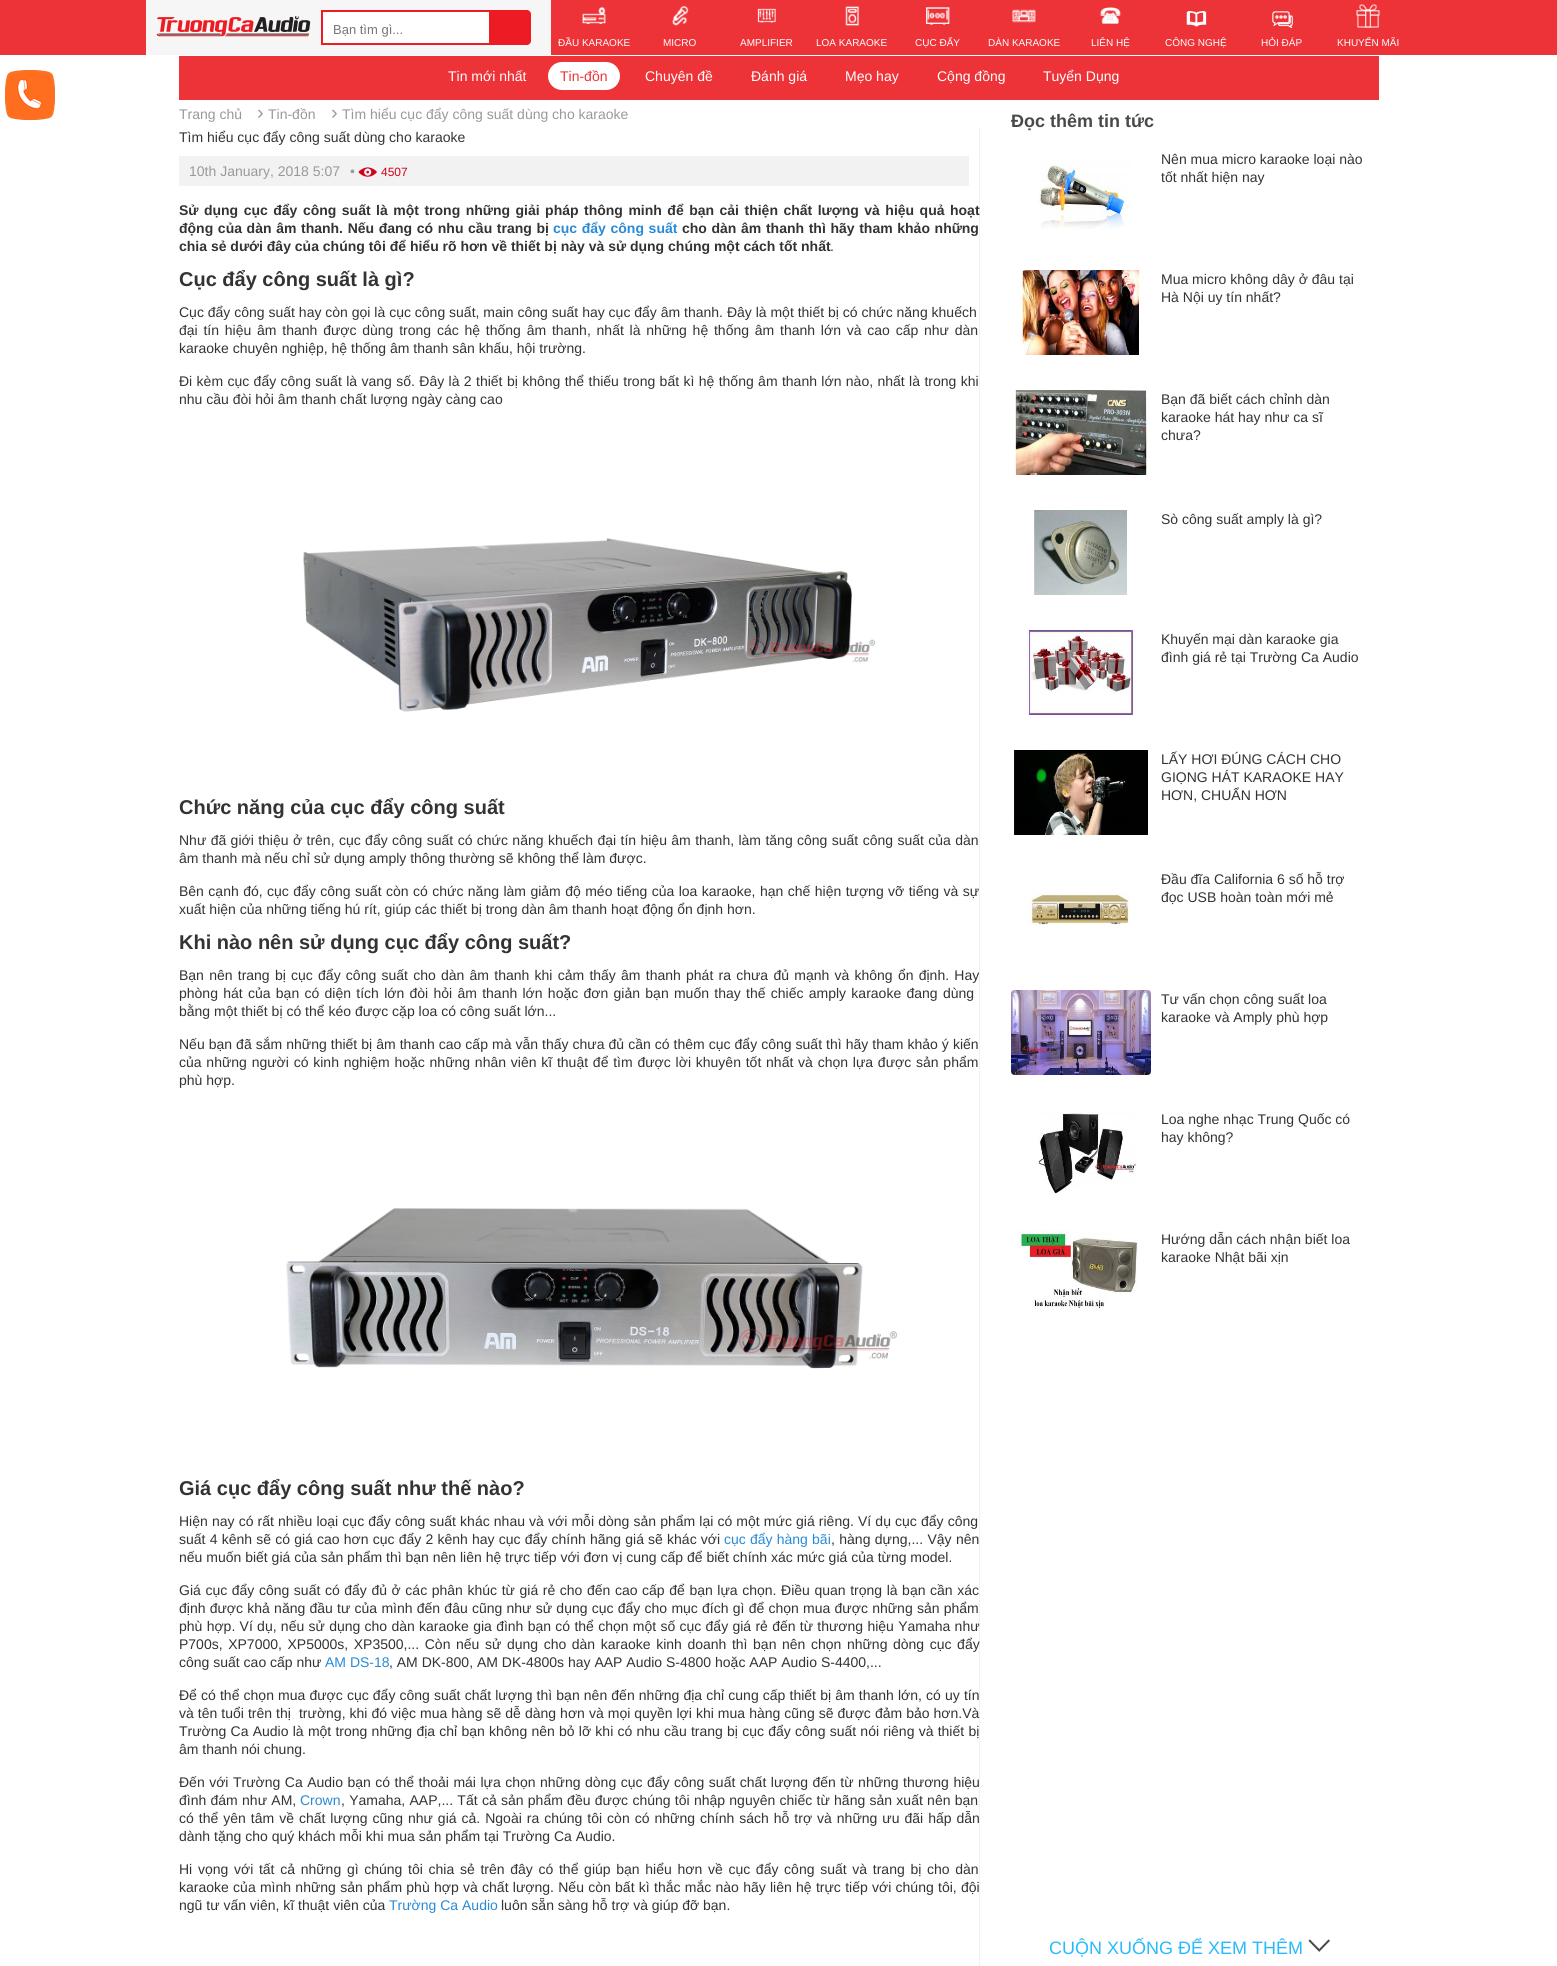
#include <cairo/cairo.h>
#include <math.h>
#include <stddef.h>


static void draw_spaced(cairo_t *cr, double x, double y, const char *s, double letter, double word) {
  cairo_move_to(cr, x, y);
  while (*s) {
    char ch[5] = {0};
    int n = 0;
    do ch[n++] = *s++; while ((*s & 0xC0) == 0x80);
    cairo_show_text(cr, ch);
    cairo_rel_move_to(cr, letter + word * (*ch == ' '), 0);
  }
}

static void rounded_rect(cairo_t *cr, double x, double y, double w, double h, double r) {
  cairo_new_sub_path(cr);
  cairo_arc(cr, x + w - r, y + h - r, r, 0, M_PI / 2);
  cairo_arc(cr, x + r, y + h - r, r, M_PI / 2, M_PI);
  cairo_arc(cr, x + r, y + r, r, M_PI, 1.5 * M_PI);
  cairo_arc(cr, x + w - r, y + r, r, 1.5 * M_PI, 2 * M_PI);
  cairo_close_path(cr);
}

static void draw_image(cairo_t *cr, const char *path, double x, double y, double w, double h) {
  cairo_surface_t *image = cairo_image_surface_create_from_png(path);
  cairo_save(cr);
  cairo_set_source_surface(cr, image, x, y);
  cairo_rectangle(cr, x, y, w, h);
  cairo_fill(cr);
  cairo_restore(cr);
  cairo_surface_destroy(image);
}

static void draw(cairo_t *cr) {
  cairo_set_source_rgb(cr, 1, 1, 1);
  cairo_paint(cr);
  cairo_set_source_rgb(cr, 238 / 255.0, 51 / 255.0, 56 / 255.0);
  cairo_rectangle(cr, 0, 0, 1557, 55);
  cairo_fill(cr);
  cairo_set_source_rgb(cr, 246 / 255.0, 246 / 255.0, 246 / 255.0);
  cairo_rectangle(cr, 146, 0, 405, 55);
  cairo_fill(cr);
  draw_image(cr, "images/1.png", 156, 16, 155, 21);
  cairo_set_source_rgb(cr, 1, 1, 1);
  cairo_rectangle(cr, 322, 11, 168, 33);
  cairo_fill_preserve(cr);
  cairo_set_source_rgb(cr, 237 / 255.0, 28 / 255.0, 36 / 255.0);
  cairo_stroke(cr);
  cairo_new_path(cr);
  cairo_move_to(cr, 491, 10);
  cairo_line_to(cr, 527, 10);
  cairo_curve_to(cr, 529, 10, 531, 12, 531, 14);
  cairo_line_to(cr, 531, 41);
  cairo_curve_to(cr, 531, 43, 529, 45, 527, 45);
  cairo_line_to(cr, 491, 45);
  cairo_close_path(cr);
  cairo_fill(cr);
  draw_image(cr, "images/2.png", 582, 7, 24, 17);
  draw_image(cr, "images/3.png", 672, 6, 17, 20);
  draw_image(cr, "images/4.png", 757, 8, 19, 15);
  draw_image(cr, "images/5.png", 845, 6, 15, 20);
  draw_image(cr, "images/6.png", 926, 7, 24, 18);
  draw_image(cr, "images/7.png", 1012, 9, 24, 14);
  draw_image(cr, "images/8.png", 1100, 7, 21, 17);
  draw_image(cr, "images/9.png", 1186, 11, 21, 16);
  draw_image(cr, "images/10.png", 1272, 11, 21, 17);
  draw_image(cr, "images/11.png", 1356, 4, 24, 24);
  draw_image(cr, "images/12.png", 5, 70, 50, 50);
  cairo_set_source_rgb(cr, 238 / 255.0, 51 / 255.0, 56 / 255.0);
  cairo_rectangle(cr, 179, 56, 1200, 44);
  cairo_fill(cr);
  cairo_set_source_rgb(cr, 1, 1, 1);
  rounded_rect(cr, 548, 62, 72, 28, 14);
  cairo_fill(cr);
  draw_image(cr, "images/13.png", 1038, 159, 93, 70);
  draw_image(cr, "images/14.png", 1018, 270, 126, 85);
  draw_image(cr, "images/15.png", 1012, 390, 136, 85);
  draw_image(cr, "images/16.png", 1034, 510, 94, 85);
  draw_image(cr, "images/17.png", 1026, 630, 111, 85);
  draw_image(cr, "images/18.png", 1014, 750, 134, 85);
  draw_image(cr, "images/19.png", 1026, 893, 104, 32);
  draw_image(cr, "images/20.png", 1011, 990, 140, 85);
  draw_image(cr, "images/21.png", 1038, 1111, 99, 83);
  draw_image(cr, "images/22.png", 1018, 1230, 120, 81);
  draw_image(cr, "images/23.png", 1308, 1939, 22, 13);
  cairo_set_source_rgb(cr, 241 / 255.0, 241 / 255.0, 241 / 255.0);
  cairo_rectangle(cr, 979, 128, 1, 1838);
  cairo_fill(cr);
  cairo_set_source_rgb(cr, 242 / 255.0, 242 / 255.0, 242 / 255.0);
  cairo_rectangle(cr, 179, 156, 790, 30);
  cairo_fill(cr);
  draw_image(cr, "images/24.png", 358, 167, 19, 10);
  draw_image(cr, "images/25.png", 303, 538, 572, 174);
  draw_image(cr, "images/26.png", 286, 1208, 611, 161);
  cairo_select_font_face(cr, "Liberation Sans", CAIRO_FONT_SLANT_NORMAL, CAIRO_FONT_WEIGHT_NORMAL);
  cairo_set_font_size(cr, 13);
  cairo_set_source_rgb(cr, 117 / 255.0, 117 / 255.0, 117 / 255.0);
  cairo_move_to(cr, 333, 34);
  cairo_show_text(cr, "Bạn tìm gì...");
  cairo_set_font_size(cr, 10);
  cairo_set_source_rgb(cr, 1, 1, 1);
  cairo_move_to(cr, 558, 46);
  cairo_show_text(cr, "ĐẦU KARAOKE");
  cairo_move_to(cr, 663, 46);
  cairo_show_text(cr, "MICRO");
  cairo_move_to(cr, 740, 46);
  cairo_show_text(cr, "AMPLIFIER");
  cairo_move_to(cr, 816, 46);
  cairo_show_text(cr, "LOA KARAOKE");
  cairo_move_to(cr, 915, 46);
  cairo_show_text(cr, "CỤC ĐẨY");
  cairo_move_to(cr, 988, 46);
  cairo_show_text(cr, "DÀN KARAOKE");
  cairo_move_to(cr, 1091, 46);
  cairo_show_text(cr, "LIÊN HỆ");
  cairo_move_to(cr, 1165, 46);
  cairo_show_text(cr, "CÔNG NGHỆ");
  cairo_move_to(cr, 1261, 46);
  cairo_show_text(cr, "HỎI ĐÁP");
  cairo_move_to(cr, 1337, 46);
  cairo_show_text(cr, "KHUYẾN MÃI");
  cairo_set_font_size(cr, 14);
  cairo_move_to(cr, 448, 81);
  cairo_show_text(cr, "Tin mới nhất");
  cairo_set_source_rgb(cr, 238 / 255.0, 51 / 255.0, 56 / 255.0);
  cairo_move_to(cr, 560, 81);
  cairo_show_text(cr, "Tin-đồn");
  cairo_set_source_rgb(cr, 1, 1, 1);
  cairo_move_to(cr, 645, 81);
  cairo_show_text(cr, "Chuyên đề");
  cairo_move_to(cr, 751, 81);
  cairo_show_text(cr, "Đánh giá");
  cairo_move_to(cr, 845, 81);
  cairo_show_text(cr, "Mẹo hay");
  cairo_move_to(cr, 937, 81);
  cairo_show_text(cr, "Cộng đồng");
  cairo_move_to(cr, 1043, 81);
  cairo_show_text(cr, "Tuyển Dụng");
  cairo_set_source_rgb(cr, 153 / 255.0, 153 / 255.0, 153 / 255.0);
  cairo_move_to(cr, 179, 119);
  cairo_show_text(cr, "Trang chủ");
  cairo_set_font_size(cr, 20);
  cairo_move_to(cr, 257, 119);
  cairo_show_text(cr, "›");
  cairo_set_font_size(cr, 14);
  cairo_move_to(cr, 268, 119);
  cairo_show_text(cr, "Tin-đồn");
  cairo_set_font_size(cr, 20);
  cairo_move_to(cr, 331, 119);
  cairo_show_text(cr, "›");
  cairo_set_font_size(cr, 14);
  cairo_move_to(cr, 342, 119);
  cairo_show_text(cr, "Tìm hiểu cục đẩy công suất dùng cho karaoke");
  cairo_select_font_face(cr, "Liberation Sans", CAIRO_FONT_SLANT_NORMAL, CAIRO_FONT_WEIGHT_BOLD);
  cairo_set_font_size(cr, 18);
  cairo_set_source_rgb(cr, 74 / 255.0, 74 / 255.0, 74 / 255.0);
  cairo_move_to(cr, 1011, 127);
  cairo_show_text(cr, "Đọc thêm tin tức");
  cairo_select_font_face(cr, "Liberation Sans", CAIRO_FONT_SLANT_NORMAL, CAIRO_FONT_WEIGHT_NORMAL);
  cairo_set_font_size(cr, 14);
  cairo_set_source_rgb(cr, 51 / 255.0, 51 / 255.0, 51 / 255.0);
  cairo_move_to(cr, 1161, 164);
  cairo_show_text(cr, "Nên mua micro karaoke loại nào");
  cairo_move_to(cr, 1161, 182);
  cairo_show_text(cr, "tốt nhất hiện nay");
  cairo_move_to(cr, 1161, 284);
  cairo_show_text(cr, "Mua micro không dây ở đâu tại");
  cairo_move_to(cr, 1161, 302);
  cairo_show_text(cr, "Hà Nội uy tín nhất?");
  cairo_move_to(cr, 1161, 404);
  cairo_show_text(cr, "Bạn đã biết cách chỉnh dàn");
  cairo_move_to(cr, 1161, 422);
  cairo_show_text(cr, "karaoke hát hay như ca sĩ");
  cairo_move_to(cr, 1161, 440);
  cairo_show_text(cr, "chưa?");
  cairo_move_to(cr, 1161, 524);
  cairo_show_text(cr, "Sò công suất amply là gì?");
  cairo_move_to(cr, 1161, 644);
  cairo_show_text(cr, "Khuyến mại dàn karaoke gia");
  cairo_move_to(cr, 1161, 662);
  cairo_show_text(cr, "đình giá rẻ tại Trường Ca Audio");
  cairo_move_to(cr, 1161, 764);
  cairo_show_text(cr, "LẤY HƠI ĐÚNG CÁCH CHO");
  cairo_move_to(cr, 1161, 782);
  cairo_show_text(cr, "GIỌNG HÁT KARAOKE HAY");
  cairo_move_to(cr, 1161, 800);
  cairo_show_text(cr, "HƠN, CHUẨN HƠN");
  cairo_move_to(cr, 1161, 884);
  cairo_show_text(cr, "Đầu đĩa California 6 số hỗ trợ");
  cairo_move_to(cr, 1161, 902);
  cairo_show_text(cr, "đọc USB hoàn toàn mới mẻ");
  cairo_move_to(cr, 1161, 1004);
  cairo_show_text(cr, "Tư vấn chọn công suất loa");
  cairo_move_to(cr, 1161, 1022);
  cairo_show_text(cr, "karaoke và Amply phù hợp");
  cairo_move_to(cr, 1161, 1124);
  cairo_show_text(cr, "Loa nghe nhạc Trung Quốc có");
  cairo_move_to(cr, 1161, 1142);
  cairo_show_text(cr, "hay không?");
  cairo_move_to(cr, 1161, 1244);
  cairo_show_text(cr, "Hướng dẫn cách nhận biết loa");
  cairo_move_to(cr, 1161, 1262);
  cairo_show_text(cr, "karaoke Nhật bãi xịn");
  cairo_set_font_size(cr, 18);
  cairo_set_source_rgb(cr, 39 / 255.0, 186 / 255.0, 1);
  cairo_move_to(cr, 1049, 1954);
  cairo_show_text(cr, "CUỘN XUỐNG ĐỂ XEM THÊM");
  cairo_set_font_size(cr, 14);
  cairo_set_source_rgb(cr, 51 / 255.0, 51 / 255.0, 51 / 255.0);
  cairo_move_to(cr, 179, 142);
  cairo_show_text(cr, "Tìm hiểu cục đẩy công suất dùng cho karaoke");
  cairo_set_source_rgb(cr, 153 / 255.0, 153 / 255.0, 153 / 255.0);
  cairo_move_to(cr, 189, 176);
  cairo_show_text(cr, "10th January, 2018 5:07");
  cairo_move_to(cr, 350, 176);
  cairo_show_text(cr, "•");
  cairo_set_font_size(cr, 12);
  cairo_set_source_rgb(cr, 208 / 255.0, 2 / 255.0, 27 / 255.0);
  cairo_move_to(cr, 381, 176);
  cairo_show_text(cr, "4507");
  cairo_select_font_face(cr, "Liberation Sans", CAIRO_FONT_SLANT_NORMAL, CAIRO_FONT_WEIGHT_BOLD);
  cairo_set_font_size(cr, 14);
  cairo_set_source_rgb(cr, 51 / 255.0, 51 / 255.0, 51 / 255.0);
  draw_spaced(cr, 179, 215, "Sử dụng cục đẩy công suất là một trong những giải pháp thông minh để bạn cải thiện chất lượng và hiệu quả hoạt", 0, 1.6);
  draw_spaced(cr, 179, 233, "động của dàn âm thanh. Nếu đang có nhu cầu trang bị", 0, 0.75);
  cairo_set_source_rgb(cr, 40 / 255.0, 138 / 255.0, 214 / 255.0);
  draw_spaced(cr, 553, 233, "cục đẩy công suất", 0, 0.75);
  cairo_set_source_rgb(cr, 51 / 255.0, 51 / 255.0, 51 / 255.0);
  draw_spaced(cr, 682, 233, "cho dàn âm thanh thì hãy tham khảo những", 0, 0.75);
  cairo_move_to(cr, 179, 251);
  cairo_show_text(cr, "chia sẻ dưới đây của chúng tôi để hiểu rõ hơn về thiết bị này và sử dụng chúng một cách tốt nhất");
  cairo_select_font_face(cr, "Liberation Sans", CAIRO_FONT_SLANT_NORMAL, CAIRO_FONT_WEIGHT_NORMAL);
  cairo_move_to(cr, 830, 251);
  cairo_show_text(cr, ".");
  cairo_select_font_face(cr, "Liberation Sans", CAIRO_FONT_SLANT_NORMAL, CAIRO_FONT_WEIGHT_BOLD);
  cairo_set_font_size(cr, 20);
  cairo_move_to(cr, 179, 286);
  cairo_show_text(cr, "Cục đẩy công suất là gì?");
  cairo_select_font_face(cr, "Liberation Sans", CAIRO_FONT_SLANT_NORMAL, CAIRO_FONT_WEIGHT_NORMAL);
  cairo_set_font_size(cr, 14);
  cairo_move_to(cr, 179, 317);
  cairo_show_text(cr, "Cục đẩy công suất hay còn gọi là cục công suất, main công suất hay cục đẩy âm thanh. Đây là một thiết bị có chức năng khuếch");
  draw_spaced(cr, 179, 335, "đại tín hiệu âm thanh được dùng trong các hệ thống âm thanh, nhất là những hệ thống âm thanh lớn và cao cấp như dàn", 0, 1.9);
  cairo_move_to(cr, 179, 353);
  cairo_show_text(cr, "karaoke chuyên nghiệp, hệ thống âm thanh sân khấu, hội trường.");
  draw_spaced(cr, 179, 386, "Đi kèm cục đẩy công suất là vang số. Đây là 2 thiết bị không thể thiếu trong bất kì hệ thống âm thanh lớn nào, nhất là trong khi", 0, 0.5);
  cairo_move_to(cr, 179, 404);
  cairo_show_text(cr, "nhu cầu đòi hỏi âm thanh chất lượng ngày càng cao");
  cairo_select_font_face(cr, "Liberation Sans", CAIRO_FONT_SLANT_NORMAL, CAIRO_FONT_WEIGHT_BOLD);
  cairo_set_font_size(cr, 20);
  cairo_move_to(cr, 179, 814);
  cairo_show_text(cr, "Chức năng của cục đẩy công suất");
  cairo_select_font_face(cr, "Liberation Sans", CAIRO_FONT_SLANT_NORMAL, CAIRO_FONT_WEIGHT_NORMAL);
  cairo_set_font_size(cr, 14);
  draw_spaced(cr, 179, 845, "Như đã giới thiệu ở trên, cục đẩy công suất có chức năng khuếch đại tín hiệu âm thanh, làm tăng công suất công suất của dàn", 0, 0.5);
  cairo_move_to(cr, 179, 863);
  cairo_show_text(cr, "âm thanh mà nếu chỉ sử dụng amply thông thường sẽ không thể làm được.");
  draw_spaced(cr, 179, 896, "Bên cạnh đó, cục đẩy công suất còn có chức năng làm giảm độ méo tiếng của loa karaoke, hạn chế hiện tượng vỡ tiếng và sự", 0, 0.55);
  cairo_move_to(cr, 179, 914);
  cairo_show_text(cr, "xuất hiện của những tiếng hú rít, giúp các thiết bị trong dàn âm thanh hoạt động ổn định hơn.");
  cairo_select_font_face(cr, "Liberation Sans", CAIRO_FONT_SLANT_NORMAL, CAIRO_FONT_WEIGHT_BOLD);
  cairo_set_font_size(cr, 20);
  cairo_move_to(cr, 179, 949);
  cairo_show_text(cr, "Khi nào nên sử dụng cục đẩy công suất?");
  cairo_select_font_face(cr, "Liberation Sans", CAIRO_FONT_SLANT_NORMAL, CAIRO_FONT_WEIGHT_NORMAL);
  cairo_set_font_size(cr, 14);
  draw_spaced(cr, 179, 980, "Bạn nên trang bị cục đẩy công suất cho dàn âm thanh khi cảm thấy âm thanh phát ra chưa đủ mạnh và không ổn định. Hay", 0, 1.35);
  draw_spaced(cr, 179, 998, "phòng hát của bạn có diện tích lớn đòi hỏi âm thanh lớn hoặc đơn giản bạn muốn thay thế chiếc amply karaoke đang dùng", 0, 1.4);
  cairo_move_to(cr, 179, 1016);
  cairo_show_text(cr, "bằng một thiết bị có thể kéo được cặp loa có công suất lớn...");
  draw_spaced(cr, 179, 1049, "Nếu bạn đã sắm những thiết bị âm thanh cao cấp mà vẫn thấy chưa đủ cần có thêm cục đẩy công suất thì hãy tham khảo ý kiến", 0, 0.15);
  draw_spaced(cr, 179, 1067, "của những người có kinh nghiệm hoặc những nhân viên kĩ thuật để tìm được lời khuyên tốt nhất và chọn lựa được sản phẩm", 0, 0.9);
  cairo_move_to(cr, 179, 1085);
  cairo_show_text(cr, "phù hợp.");
  cairo_select_font_face(cr, "Liberation Sans", CAIRO_FONT_SLANT_NORMAL, CAIRO_FONT_WEIGHT_BOLD);
  cairo_set_font_size(cr, 20);
  cairo_move_to(cr, 179, 1495);
  cairo_show_text(cr, "Giá cục đẩy công suất như thế nào?");
  cairo_select_font_face(cr, "Liberation Sans", CAIRO_FONT_SLANT_NORMAL, CAIRO_FONT_WEIGHT_NORMAL);
  cairo_set_font_size(cr, 14);
  draw_spaced(cr, 179, 1526, "Hiện nay có rất nhiều loại cục đẩy công suất khác nhau và với mỗi dòng sản phẩm lại có một mức giá riêng. Ví dụ cục đẩy công", 0, 0.25);
  draw_spaced(cr, 179, 1544, "suất 4 kênh sẽ có giá cao hơn cục đẩy 2 kênh hay cục đẩy chính hãng giá sẽ khác với", 0, 0.3);
  cairo_set_source_rgb(cr, 40 / 255.0, 138 / 255.0, 214 / 255.0);
  draw_spaced(cr, 724, 1544, "cục đẩy hàng bãi", 0, 0.3);
  cairo_set_source_rgb(cr, 51 / 255.0, 51 / 255.0, 51 / 255.0);
  draw_spaced(cr, 831, 1544, ", hàng dựng,... Vậy nên", 0, 0.5);
  cairo_move_to(cr, 179, 1562);
  cairo_show_text(cr, "nếu muốn biết giá của sản phẩm thì bạn nên liên hệ trực tiếp với đơn vị cung cấp để biết chính xác mức giá của từng model.");
  draw_spaced(cr, 179, 1595, "Giá cục đẩy công suất có đẩy đủ ở các phân khúc từ giá rẻ cho đến cao cấp để bạn lựa chọn. Điều quan trọng là bạn cần xác", 0, 0.7);
  draw_spaced(cr, 179, 1613, "định được khả năng đầu tư của mình đến đâu cũng như sử dụng cục đẩy cho mục đích gì để chọn mua được những sản phẩm", 0, 0.35);
  draw_spaced(cr, 179, 1631, "phù hợp. Ví dụ, nếu sử dụng cho dàn karaoke gia đình bạn có thể chọn một số cục đẩy giá rẻ đến từ thương hiệu Yamaha như", 0, 0.4);
  draw_spaced(cr, 179, 1649, "P700s, XP7000, XP5000s, XP3500,... Còn nếu sử dụng cho dàn karaoke kinh doanh thì bạn nên chọn những dòng cục đẩy", 0, 1.7);
  cairo_move_to(cr, 179, 1667);
  cairo_show_text(cr, "công suất cao cấp như");
  cairo_set_source_rgb(cr, 40 / 255.0, 138 / 255.0, 214 / 255.0);
  cairo_move_to(cr, 325, 1667);
  cairo_show_text(cr, "AM DS-18");
  cairo_set_source_rgb(cr, 51 / 255.0, 51 / 255.0, 51 / 255.0);
  cairo_move_to(cr, 389, 1667);
  cairo_show_text(cr, ", AM DK-800, AM DK-4800s hay AAP Audio S-4800 hoặc AAP Audio S-4400,...");
  draw_spaced(cr, 179, 1700, "Để có thể chọn mua được cục đẩy công suất chất lượng thì bạn nên đến những địa chỉ cung cấp thiết bị âm thanh lớn, có uy tín", 0, 0.25);
  draw_spaced(cr, 179, 1718, "và tên tuổi trên thị  trường, khi đó việc mua hàng sẽ dễ dàng hơn và mọi quyền lợi khi mua hàng cũng sẽ được đảm bảo hơn.Và", 0, 0.15);
  draw_spaced(cr, 179, 1736, "Trường Ca Audio là một trong những địa chỉ bạn không nên bỏ lỡ khi có nhu cầu trang bị cục đẩy công suất nói riêng và thiết bị", 0, 0.35);
  cairo_move_to(cr, 179, 1754);
  cairo_show_text(cr, "âm thanh nói chung.");
  draw_spaced(cr, 179, 1787, "Đến với Trường Ca Audio bạn có thể thoải mái lựa chọn những dòng cục đẩy công suất chất lượng đến từ những thương hiệu", 0, 0.6);
  draw_spaced(cr, 179, 1805, "đình đám như AM,", 0, 0.4);
  cairo_set_source_rgb(cr, 40 / 255.0, 138 / 255.0, 214 / 255.0);
  cairo_move_to(cr, 300, 1805);
  cairo_show_text(cr, "Crown");
  cairo_set_source_rgb(cr, 51 / 255.0, 51 / 255.0, 51 / 255.0);
  draw_spaced(cr, 341, 1805, ", Yamaha, AAP,... Tất cả sản phẩm đều được chúng tôi nhập nguyên chiếc từ hãng sản xuất nên bạn", 0, 0.4);
  draw_spaced(cr, 179, 1823, "có thể yên tâm về chất lượng cũng như giá cả. Ngoài ra chúng tôi còn có những chính sách hỗ trợ và những ưu đãi hấp dẫn", 0, 1.1);
  cairo_move_to(cr, 179, 1841);
  cairo_show_text(cr, "dành tặng cho quý khách mỗi khi mua sản phẩm tại Trường Ca Audio.");
  draw_spaced(cr, 179, 1874, "Hi vọng với tất cả những gì chúng tôi chia sẻ trên đây có thể giúp bạn hiểu hơn về cục đẩy công suất và trang bị cho dàn", 0, 1.8);
  draw_spaced(cr, 179, 1892, "karaoke của mình những sản phẩm phù hợp và chất lượng. Nếu còn bất kì thắc mắc nào hãy liên hệ trực tiếp với chúng tôi, đội", 0, 0.4);
  cairo_move_to(cr, 179, 1910);
  cairo_show_text(cr, "ngũ tư vấn viên, kĩ thuật viên của");
  cairo_set_source_rgb(cr, 40 / 255.0, 138 / 255.0, 214 / 255.0);
  cairo_move_to(cr, 389, 1910);
  cairo_show_text(cr, "Trường Ca Audio");
  cairo_set_source_rgb(cr, 51 / 255.0, 51 / 255.0, 51 / 255.0);
  cairo_move_to(cr, 501, 1910);
  cairo_show_text(cr, "luôn sẵn sàng hỗ trợ và giúp đỡ bạn.");
}

int main(void) {
  cairo_surface_t *surface = cairo_image_surface_create(CAIRO_FORMAT_RGB24, 1557, 1966);
  cairo_t *cr = cairo_create(surface);
  cairo_font_options_t *options = cairo_font_options_create();
  cairo_font_options_set_hint_metrics(options, CAIRO_HINT_METRICS_OFF);
  cairo_font_options_set_hint_style(options, CAIRO_HINT_STYLE_NONE);
  cairo_set_font_options(cr, options);
  cairo_set_miter_limit(cr, 4);
  draw(cr);
  cairo_surface_write_to_png(surface, "out.png");
  cairo_font_options_destroy(options);
  cairo_destroy(cr);
  cairo_surface_destroy(surface);
  return 0;
}
